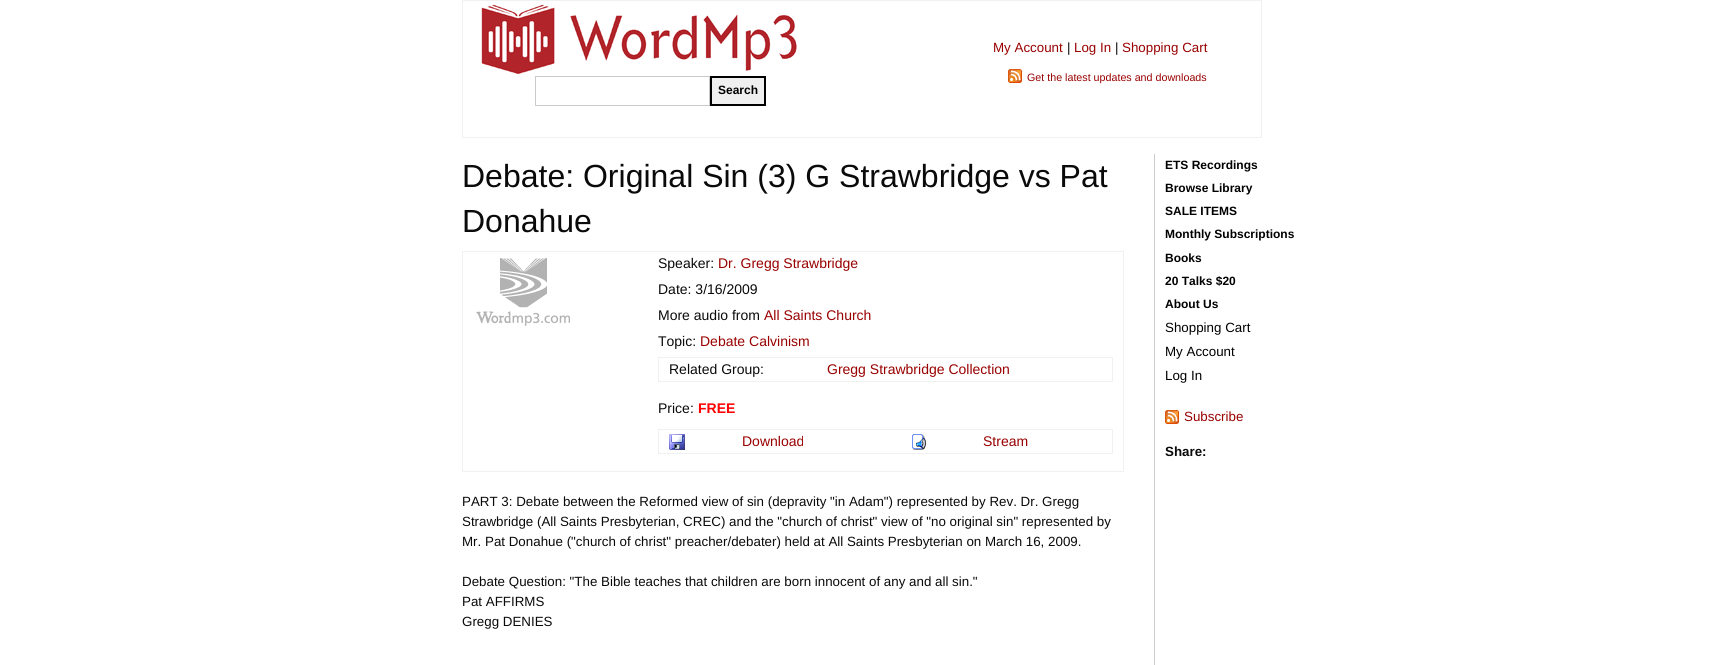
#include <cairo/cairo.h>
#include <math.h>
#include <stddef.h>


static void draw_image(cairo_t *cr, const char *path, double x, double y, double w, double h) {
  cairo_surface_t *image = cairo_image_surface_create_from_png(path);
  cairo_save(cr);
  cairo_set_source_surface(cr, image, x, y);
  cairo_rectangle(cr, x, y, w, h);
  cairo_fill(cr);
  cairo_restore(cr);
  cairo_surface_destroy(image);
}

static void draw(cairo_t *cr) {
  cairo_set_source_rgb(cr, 1, 1, 1);
  cairo_paint(cr);
  cairo_set_source_rgb(cr, 241 / 255.0, 241 / 255.0, 241 / 255.0);
  cairo_rectangle(cr, 462, 0, 800, 1);
  cairo_fill(cr);
  cairo_rectangle(cr, 1261, 0, 1, 138);
  cairo_fill(cr);
  cairo_rectangle(cr, 462, 137, 800, 1);
  cairo_fill(cr);
  cairo_rectangle(cr, 462, 0, 1, 138);
  cairo_fill(cr);
  draw_image(cr, "images/1.png", 1008, 69, 14, 14);
  draw_image(cr, "images/2.png", 481, 4, 316, 70);
  cairo_rectangle(cr, 535.5, 76.5, 174, 29);
  cairo_set_source_rgb(cr, 202 / 255.0, 202 / 255.0, 202 / 255.0);
  cairo_set_line_width(cr, 1);
  cairo_stroke(cr);
  cairo_set_source_rgb(cr, 239 / 255.0, 239 / 255.0, 239 / 255.0);
  cairo_rectangle(cr, 711, 77, 54, 28);
  cairo_fill_preserve(cr);
  cairo_set_source_rgb(cr, 0, 0, 0);
  cairo_set_line_width(cr, 2);
  cairo_stroke(cr);
  cairo_set_source_rgb(cr, 241 / 255.0, 241 / 255.0, 241 / 255.0);
  cairo_rectangle(cr, 462, 251, 662, 1);
  cairo_fill(cr);
  cairo_rectangle(cr, 1123, 251, 1, 221);
  cairo_fill(cr);
  cairo_rectangle(cr, 462, 471, 662, 1);
  cairo_fill(cr);
  cairo_rectangle(cr, 462, 251, 1, 221);
  cairo_fill(cr);
  draw_image(cr, "images/3.png", 476, 258, 94, 68);
  cairo_rectangle(cr, 658, 357, 455, 1);
  cairo_fill(cr);
  cairo_rectangle(cr, 1112, 357, 1, 25);
  cairo_fill(cr);
  cairo_rectangle(cr, 658, 381, 455, 1);
  cairo_fill(cr);
  cairo_rectangle(cr, 658, 357, 1, 25);
  cairo_fill(cr);
  cairo_rectangle(cr, 658, 429, 455, 1);
  cairo_fill(cr);
  cairo_rectangle(cr, 1112, 429, 1, 25);
  cairo_fill(cr);
  cairo_rectangle(cr, 658, 453, 455, 1);
  cairo_fill(cr);
  cairo_rectangle(cr, 658, 429, 1, 25);
  cairo_fill(cr);
  draw_image(cr, "images/4.png", 669, 434, 16, 16);
  draw_image(cr, "images/5.png", 912, 434, 14, 16);
  cairo_set_source_rgb(cr, 204 / 255.0, 204 / 255.0, 204 / 255.0);
  cairo_rectangle(cr, 1154, 154, 1, 511);
  cairo_fill(cr);
  draw_image(cr, "images/1.png", 1165, 410, 14, 14);
  cairo_select_font_face(cr, "Liberation Sans", CAIRO_FONT_SLANT_NORMAL, CAIRO_FONT_WEIGHT_NORMAL);
  cairo_set_font_size(cr, 13.35);
  cairo_set_source_rgb(cr, 153 / 255.0, 0, 0);
  cairo_move_to(cr, 993, 52);
  cairo_show_text(cr, "My Account");
  cairo_set_source_rgb(cr, 10 / 255.0, 10 / 255.0, 10 / 255.0);
  cairo_move_to(cr, 1067, 52);
  cairo_show_text(cr, "|");
  cairo_set_source_rgb(cr, 153 / 255.0, 0, 0);
  cairo_move_to(cr, 1074, 52);
  cairo_show_text(cr, "Log In");
  cairo_set_source_rgb(cr, 10 / 255.0, 10 / 255.0, 10 / 255.0);
  cairo_move_to(cr, 1115, 52);
  cairo_show_text(cr, "|");
  cairo_set_source_rgb(cr, 153 / 255.0, 0, 0);
  cairo_move_to(cr, 1122, 52);
  cairo_show_text(cr, "Shopping Cart");
  cairo_set_font_size(cr, 10.7);
  cairo_move_to(cr, 1027, 81);
  cairo_show_text(cr, "Get the latest updates and downloads");
  cairo_select_font_face(cr, "Liberation Sans", CAIRO_FONT_SLANT_NORMAL, CAIRO_FONT_WEIGHT_BOLD);
  cairo_set_font_size(cr, 12);
  cairo_set_source_rgb(cr, 0, 0, 0);
  cairo_move_to(cr, 718, 94);
  cairo_show_text(cr, "Search");
  cairo_select_font_face(cr, "Liberation Sans", CAIRO_FONT_SLANT_NORMAL, CAIRO_FONT_WEIGHT_NORMAL);
  cairo_set_font_size(cr, 32);
  cairo_set_source_rgb(cr, 10 / 255.0, 10 / 255.0, 10 / 255.0);
  cairo_move_to(cr, 462, 187);
  cairo_show_text(cr, "Debate: Original Sin (3) G Strawbridge vs Pat");
  cairo_move_to(cr, 462, 232);
  cairo_show_text(cr, "Donahue");
  cairo_set_font_size(cr, 14);
  cairo_move_to(cr, 658, 268);
  cairo_show_text(cr, "Speaker:");
  cairo_set_source_rgb(cr, 153 / 255.0, 0, 0);
  cairo_move_to(cr, 718, 268);
  cairo_show_text(cr, "Dr. Gregg Strawbridge");
  cairo_set_source_rgb(cr, 10 / 255.0, 10 / 255.0, 10 / 255.0);
  cairo_move_to(cr, 658, 294);
  cairo_show_text(cr, "Date: 3/16/2009");
  cairo_move_to(cr, 658, 320);
  cairo_show_text(cr, "More audio from");
  cairo_set_source_rgb(cr, 153 / 255.0, 0, 0);
  cairo_move_to(cr, 764, 320);
  cairo_show_text(cr, "All Saints Church");
  cairo_set_source_rgb(cr, 10 / 255.0, 10 / 255.0, 10 / 255.0);
  cairo_move_to(cr, 658, 346);
  cairo_show_text(cr, "Topic:");
  cairo_set_source_rgb(cr, 153 / 255.0, 0, 0);
  cairo_move_to(cr, 700, 346);
  cairo_show_text(cr, "Debate Calvinism");
  cairo_set_source_rgb(cr, 10 / 255.0, 10 / 255.0, 10 / 255.0);
  cairo_move_to(cr, 669, 374);
  cairo_show_text(cr, "Related Group:");
  cairo_set_source_rgb(cr, 153 / 255.0, 0, 0);
  cairo_move_to(cr, 827, 374);
  cairo_show_text(cr, "Gregg Strawbridge Collection");
  cairo_set_source_rgb(cr, 10 / 255.0, 10 / 255.0, 10 / 255.0);
  cairo_move_to(cr, 658, 413);
  cairo_show_text(cr, "Price:");
  cairo_select_font_face(cr, "Liberation Sans", CAIRO_FONT_SLANT_NORMAL, CAIRO_FONT_WEIGHT_BOLD);
  cairo_set_source_rgb(cr, 1, 0, 0);
  cairo_move_to(cr, 698, 413);
  cairo_show_text(cr, "FREE");
  cairo_select_font_face(cr, "Liberation Sans", CAIRO_FONT_SLANT_NORMAL, CAIRO_FONT_WEIGHT_NORMAL);
  cairo_set_source_rgb(cr, 153 / 255.0, 0, 0);
  cairo_move_to(cr, 742, 446);
  cairo_show_text(cr, "Download");
  cairo_move_to(cr, 983, 446);
  cairo_show_text(cr, "Stream");
  cairo_set_font_size(cr, 13.35);
  cairo_set_source_rgb(cr, 10 / 255.0, 10 / 255.0, 10 / 255.0);
  cairo_move_to(cr, 462, 506);
  cairo_show_text(cr, "PART 3: Debate between the Reformed view of sin (depravity \"in Adam\") represented by Rev. Dr. Gregg");
  cairo_move_to(cr, 462, 526);
  cairo_show_text(cr, "Strawbridge (All Saints Presbyterian, CREC) and the \"church of christ\" view of \"no original sin\" represented by");
  cairo_move_to(cr, 462, 546);
  cairo_show_text(cr, "Mr. Pat Donahue (\"church of christ\" preacher/debater) held at All Saints Presbyterian on March 16, 2009.");
  cairo_move_to(cr, 462, 586);
  cairo_show_text(cr, "Debate Question: \"The Bible teaches that children are born innocent of any and all sin.\"");
  cairo_move_to(cr, 462, 606);
  cairo_show_text(cr, "Pat AFFIRMS");
  cairo_move_to(cr, 462, 626);
  cairo_show_text(cr, "Gregg DENIES");
  cairo_select_font_face(cr, "Liberation Sans", CAIRO_FONT_SLANT_NORMAL, CAIRO_FONT_WEIGHT_BOLD);
  cairo_set_font_size(cr, 12);
  cairo_set_source_rgb(cr, 0, 0, 0);
  cairo_move_to(cr, 1165, 169);
  cairo_show_text(cr, "ETS Recordings");
  cairo_move_to(cr, 1165, 192);
  cairo_show_text(cr, "Browse Library");
  cairo_move_to(cr, 1165, 215);
  cairo_show_text(cr, "SALE ITEMS");
  cairo_move_to(cr, 1165, 238);
  cairo_show_text(cr, "Monthly Subscriptions");
  cairo_move_to(cr, 1165, 262);
  cairo_show_text(cr, "Books");
  cairo_move_to(cr, 1165, 285);
  cairo_show_text(cr, "20 Talks $20");
  cairo_move_to(cr, 1165, 308);
  cairo_show_text(cr, "About Us");
  cairo_select_font_face(cr, "Liberation Sans", CAIRO_FONT_SLANT_NORMAL, CAIRO_FONT_WEIGHT_NORMAL);
  cairo_set_font_size(cr, 13.35);
  cairo_move_to(cr, 1165, 332);
  cairo_show_text(cr, "Shopping Cart");
  cairo_move_to(cr, 1165, 356);
  cairo_show_text(cr, "My Account");
  cairo_move_to(cr, 1165, 380);
  cairo_show_text(cr, "Log In");
  cairo_set_source_rgb(cr, 153 / 255.0, 0, 0);
  cairo_move_to(cr, 1184, 421);
  cairo_show_text(cr, "Subscribe");
  cairo_select_font_face(cr, "Liberation Sans", CAIRO_FONT_SLANT_NORMAL, CAIRO_FONT_WEIGHT_BOLD);
  cairo_set_source_rgb(cr, 10 / 255.0, 10 / 255.0, 10 / 255.0);
  cairo_move_to(cr, 1165, 456);
  cairo_show_text(cr, "Share:");
}

int main(void) {
  cairo_surface_t *surface = cairo_image_surface_create(CAIRO_FORMAT_RGB24, 1724, 665);
  cairo_t *cr = cairo_create(surface);
  cairo_font_options_t *options = cairo_font_options_create();
  cairo_font_options_set_hint_metrics(options, CAIRO_HINT_METRICS_OFF);
  cairo_font_options_set_hint_style(options, CAIRO_HINT_STYLE_NONE);
  cairo_set_font_options(cr, options);
  cairo_set_miter_limit(cr, 4);
  draw(cr);
  cairo_surface_write_to_png(surface, "out.png");
  cairo_font_options_destroy(options);
  cairo_destroy(cr);
  cairo_surface_destroy(surface);
  return 0;
}
